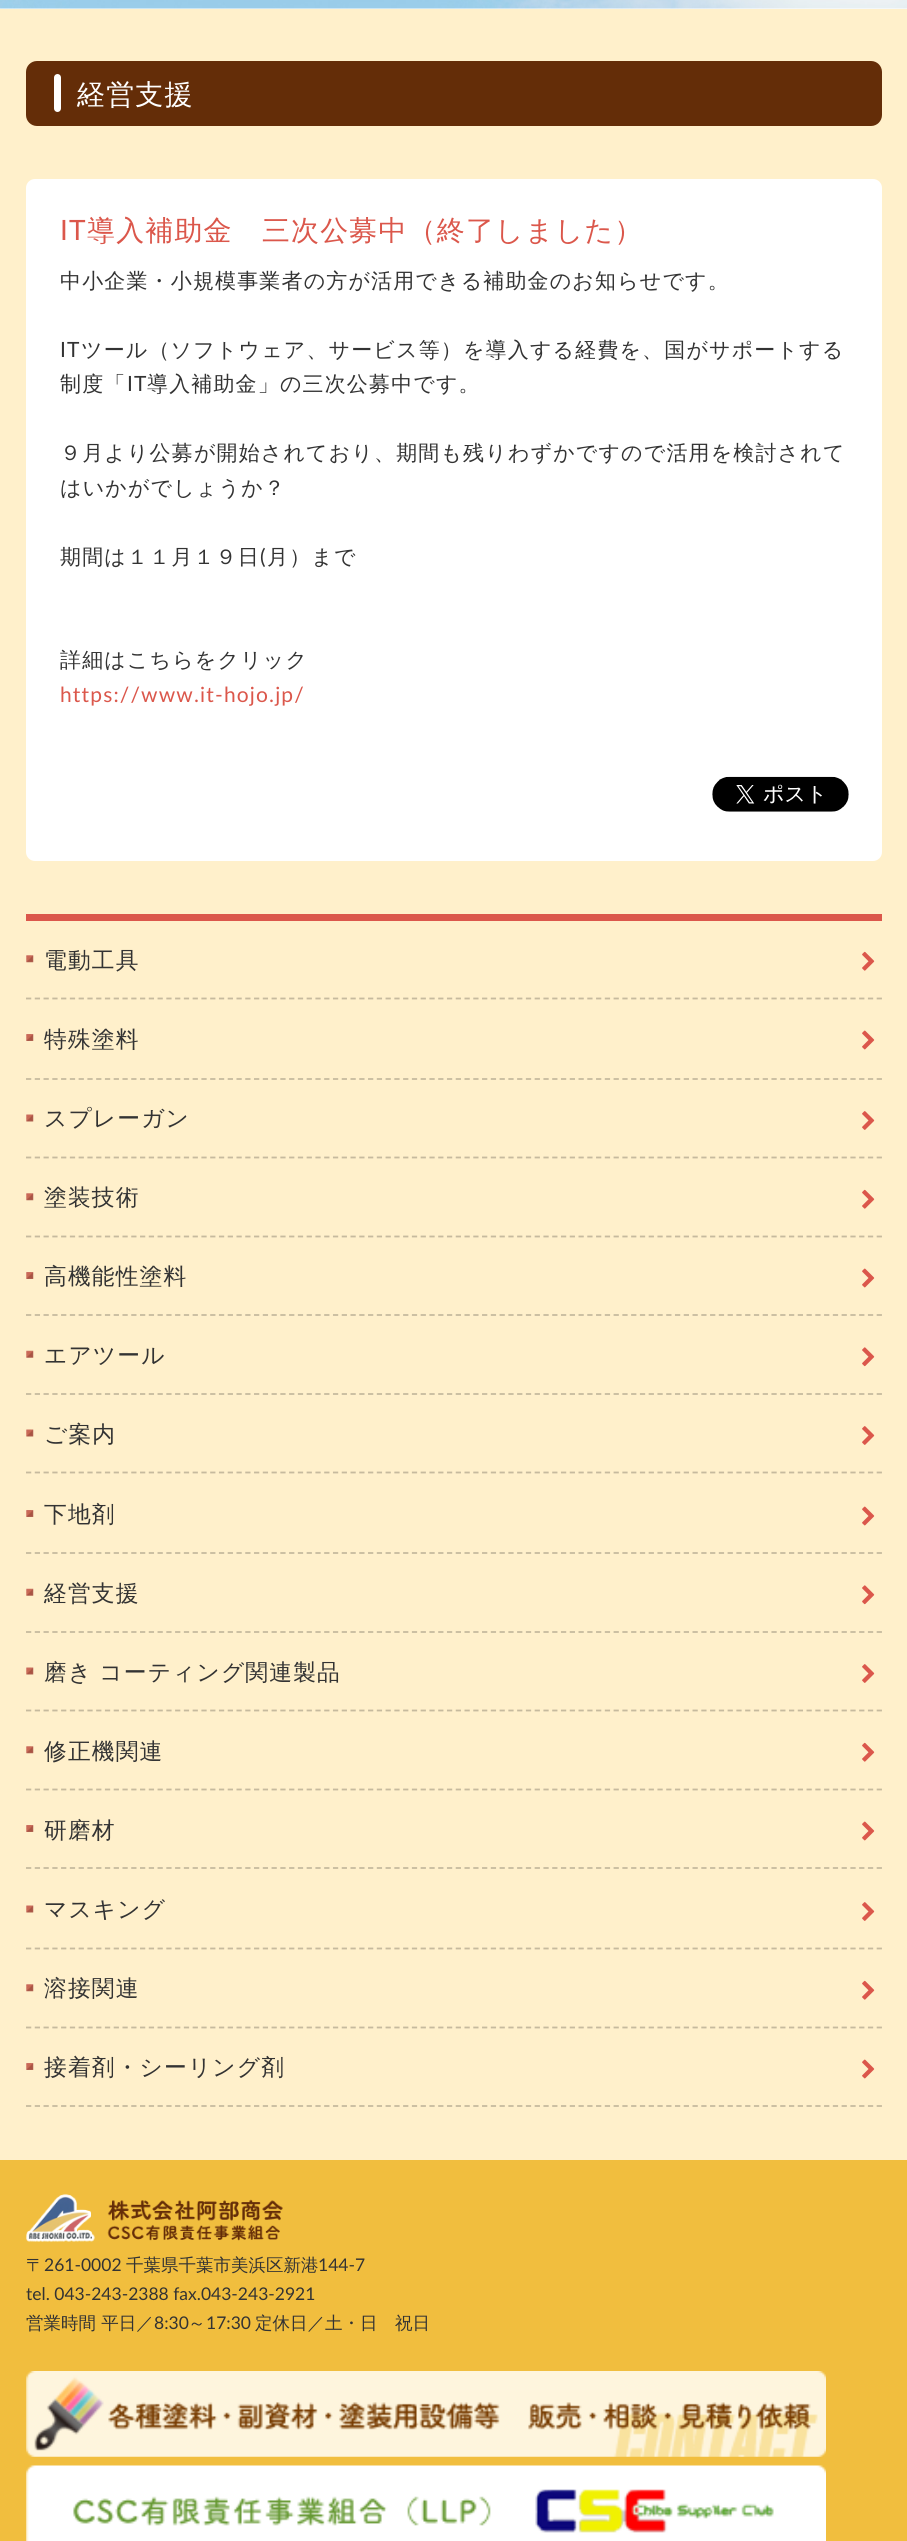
#include <cairo/cairo.h>
#include <math.h>
#include <stddef.h>


static void draw_spaced(cairo_t *cr, double x, double y, const char *s, double letter, double word) {
  cairo_move_to(cr, x, y);
  while (*s) {
    char ch[5] = {0};
    int n = 0;
    do ch[n++] = *s++; while ((*s & 0xC0) == 0x80);
    cairo_show_text(cr, ch);
    cairo_rel_move_to(cr, letter + word * (*ch == ' '), 0);
  }
}

static void rounded_rect(cairo_t *cr, double x, double y, double w, double h, double r) {
  cairo_new_sub_path(cr);
  cairo_arc(cr, x + w - r, y + h - r, r, 0, M_PI / 2);
  cairo_arc(cr, x + r, y + h - r, r, M_PI / 2, M_PI);
  cairo_arc(cr, x + r, y + r, r, M_PI, 1.5 * M_PI);
  cairo_arc(cr, x + w - r, y + r, r, 1.5 * M_PI, 2 * M_PI);
  cairo_close_path(cr);
}

static void draw_image(cairo_t *cr, const char *path, double x, double y, double w, double h) {
  cairo_surface_t *image = cairo_image_surface_create_from_png(path);
  cairo_save(cr);
  cairo_set_source_surface(cr, image, x, y);
  cairo_rectangle(cr, x, y, w, h);
  cairo_fill(cr);
  cairo_restore(cr);
  cairo_surface_destroy(image);
}

static void draw(cairo_t *cr) {
  cairo_set_source_rgb(cr, 1, 1, 1);
  cairo_paint(cr);
  draw_image(cr, "images/1.png", 0, 0, 907, 9);
  cairo_set_source_rgb(cr, 1, 240 / 255.0, 203 / 255.0);
  cairo_rectangle(cr, 0, 9, 907, 2151);
  cairo_fill(cr);
  cairo_set_source_rgb(cr, 100 / 255.0, 45 / 255.0, 8 / 255.0);
  rounded_rect(cr, 26, 61, 856, 65, 11);
  cairo_fill(cr);
  cairo_set_source_rgb(cr, 1, 1, 1);
  rounded_rect(cr, 54, 74, 7, 38, 3.5);
  cairo_fill(cr);
  rounded_rect(cr, 26, 179, 856, 682, 9);
  cairo_fill(cr);
  draw_image(cr, "images/2.png", 712, 776, 137, 36);
  cairo_set_source_rgb(cr, 219 / 255.0, 87 / 255.0, 75 / 255.0);
  cairo_rectangle(cr, 26, 914, 856, 7);
  cairo_fill(cr);
  cairo_new_path(cr);
  cairo_move_to(cr, 26, 998.5);
  cairo_line_to(cr, 882, 998.5);
  cairo_set_source_rgb(cr, 198 / 255.0, 186 / 255.0, 158 / 255.0);
  cairo_set_line_width(cr, 1.8);
  cairo_set_dash(cr, (double[]){5.25, 3.52}, 2, 0);
  cairo_stroke(cr);
  draw_image(cr, "images/3.png", 26, 955, 8, 8);
  draw_image(cr, "images/4.png", 862, 951, 13, 20);
  cairo_new_path(cr);
  cairo_move_to(cr, 26, 1079);
  cairo_line_to(cr, 882, 1079);
  cairo_stroke(cr);
  draw_image(cr, "images/5.png", 26, 1034, 8, 7);
  draw_image(cr, "images/6.png", 862, 1030, 13, 20);
  cairo_new_path(cr);
  cairo_move_to(cr, 26, 1157.5);
  cairo_line_to(cr, 882, 1157.5);
  cairo_stroke(cr);
  draw_image(cr, "images/7.png", 26, 1114, 8, 8);
  draw_image(cr, "images/8.png", 862, 1111, 13, 19);
  cairo_new_path(cr);
  cairo_move_to(cr, 26, 1236.5);
  cairo_line_to(cr, 882, 1236.5);
  cairo_stroke(cr);
  draw_image(cr, "images/3.png", 26, 1193, 8, 8);
  draw_image(cr, "images/4.png", 862, 1189, 13, 20);
  cairo_new_path(cr);
  cairo_move_to(cr, 26, 1315);
  cairo_line_to(cr, 882, 1315);
  cairo_stroke(cr);
  draw_image(cr, "images/5.png", 26, 1272, 8, 7);
  draw_image(cr, "images/6.png", 862, 1268, 13, 20);
  cairo_new_path(cr);
  cairo_move_to(cr, 26, 1394);
  cairo_line_to(cr, 882, 1394);
  cairo_stroke(cr);
  draw_image(cr, "images/9.png", 26, 1350, 8, 8);
  draw_image(cr, "images/10.png", 862, 1347, 13, 20);
  cairo_new_path(cr);
  cairo_move_to(cr, 26, 1472.5);
  cairo_line_to(cr, 882, 1472.5);
  cairo_stroke(cr);
  draw_image(cr, "images/7.png", 26, 1429, 8, 8);
  draw_image(cr, "images/8.png", 862, 1426, 13, 19);
  cairo_new_path(cr);
  cairo_move_to(cr, 26, 1553);
  cairo_line_to(cr, 882, 1553);
  cairo_stroke(cr);
  draw_image(cr, "images/5.png", 26, 1510, 8, 7);
  draw_image(cr, "images/6.png", 862, 1506, 13, 20);
  cairo_new_path(cr);
  cairo_move_to(cr, 26, 1632);
  cairo_line_to(cr, 882, 1632);
  cairo_stroke(cr);
  draw_image(cr, "images/9.png", 26, 1588, 8, 8);
  draw_image(cr, "images/10.png", 862, 1585, 13, 20);
  cairo_new_path(cr);
  cairo_move_to(cr, 26, 1710.5);
  cairo_line_to(cr, 882, 1710.5);
  cairo_stroke(cr);
  draw_image(cr, "images/7.png", 26, 1667, 8, 8);
  draw_image(cr, "images/8.png", 862, 1664, 13, 19);
  cairo_new_path(cr);
  cairo_move_to(cr, 26, 1789.5);
  cairo_line_to(cr, 882, 1789.5);
  cairo_stroke(cr);
  draw_image(cr, "images/11.png", 26, 1746, 8, 8);
  draw_image(cr, "images/4.png", 862, 1742, 13, 20);
  cairo_new_path(cr);
  cairo_move_to(cr, 26, 1868);
  cairo_line_to(cr, 882, 1868);
  cairo_stroke(cr);
  draw_image(cr, "images/5.png", 26, 1825, 8, 7);
  draw_image(cr, "images/6.png", 862, 1821, 13, 20);
  cairo_new_path(cr);
  cairo_move_to(cr, 26, 1948.5);
  cairo_line_to(cr, 882, 1948.5);
  cairo_stroke(cr);
  draw_image(cr, "images/7.png", 26, 1905, 8, 8);
  draw_image(cr, "images/8.png", 862, 1902, 13, 19);
  cairo_new_path(cr);
  cairo_move_to(cr, 26, 2027.5);
  cairo_line_to(cr, 882, 2027.5);
  cairo_stroke(cr);
  draw_image(cr, "images/3.png", 26, 1984, 8, 8);
  draw_image(cr, "images/4.png", 862, 1980, 13, 20);
  cairo_new_path(cr);
  cairo_move_to(cr, 26, 2106);
  cairo_line_to(cr, 882, 2106);
  cairo_stroke(cr);
  draw_image(cr, "images/5.png", 26, 2063, 8, 7);
  draw_image(cr, "images/6.png", 862, 2059, 13, 20);
  cairo_set_source_rgb(cr, 241 / 255.0, 190 / 255.0, 62 / 255.0);
  cairo_rectangle(cr, 0, 2160, 907, 381);
  cairo_fill(cr);
  draw_image(cr, "images/12.png", 26, 2194, 257, 48);
  draw_image(cr, "images/13.png", 26, 2371, 800, 86);
  draw_image(cr, "images/14.png", 26, 2465, 800, 76);
  cairo_select_font_face(cr, "WenQuanYi Zen Hei Medium", CAIRO_FONT_SLANT_NORMAL, CAIRO_FONT_WEIGHT_NORMAL);
  cairo_set_font_size(cr, 28);
  cairo_set_source_rgb(cr, 1, 1, 1);
  draw_spaced(cr, 77, 104, "経営支援", 1.15, 0);
  cairo_select_font_face(cr, "Lato", CAIRO_FONT_SLANT_NORMAL, CAIRO_FONT_WEIGHT_NORMAL);
  cairo_set_source_rgb(cr, 219 / 255.0, 87 / 255.0, 75 / 255.0);
  draw_spaced(cr, 60, 240, "IT", 1.15, 0);
  cairo_select_font_face(cr, "WenQuanYi Zen Hei Medium", CAIRO_FONT_SLANT_NORMAL, CAIRO_FONT_WEIGHT_NORMAL);
  draw_spaced(cr, 87, 240, "導入補助金　三次公募中（終了しました）", 1.15, 0);
  cairo_set_font_size(cr, 21);
  cairo_set_source_rgb(cr, 51 / 255.0, 51 / 255.0, 51 / 255.0);
  draw_spaced(cr, 60, 288, "中小企業・小規模事業者の方が活用できる補助金のお知らせです。", 1.15, 0);
  cairo_select_font_face(cr, "Lato", CAIRO_FONT_SLANT_NORMAL, CAIRO_FONT_WEIGHT_NORMAL);
  draw_spaced(cr, 60, 357, "IT", 1.15, 0);
  cairo_select_font_face(cr, "WenQuanYi Zen Hei Medium", CAIRO_FONT_SLANT_NORMAL, CAIRO_FONT_WEIGHT_NORMAL);
  draw_spaced(cr, 81, 357, "ツール（ソフトウェア、サービス等）を導入する経費を、国がサポートする", 1.15, 0);
  draw_spaced(cr, 60, 391, "制度「", 1.15, 0);
  cairo_select_font_face(cr, "Lato", CAIRO_FONT_SLANT_NORMAL, CAIRO_FONT_WEIGHT_NORMAL);
  draw_spaced(cr, 127, 391, "IT", 1.15, 0);
  cairo_select_font_face(cr, "WenQuanYi Zen Hei Medium", CAIRO_FONT_SLANT_NORMAL, CAIRO_FONT_WEIGHT_NORMAL);
  draw_spaced(cr, 147, 391, "導入補助金」の三次公募中です。", 1.15, 0);
  draw_spaced(cr, 60, 460, "９月より公募が開始されており、期間も残りわずかですので活用を検討されて", 1.15, 0);
  draw_spaced(cr, 60, 495, "はいかがでしょうか？", 1.15, 0);
  draw_spaced(cr, 60, 564, "期間は１１月１９日", 1.15, 0);
  cairo_select_font_face(cr, "Lato", CAIRO_FONT_SLANT_NORMAL, CAIRO_FONT_WEIGHT_NORMAL);
  draw_spaced(cr, 260, 564, "(", 1.15, 0);
  cairo_select_font_face(cr, "WenQuanYi Zen Hei Medium", CAIRO_FONT_SLANT_NORMAL, CAIRO_FONT_WEIGHT_NORMAL);
  draw_spaced(cr, 267, 564, "月）まで", 1.15, 0);
  draw_spaced(cr, 60, 667, "詳細はこちらをクリック", 1.15, 0);
  cairo_select_font_face(cr, "Lato", CAIRO_FONT_SLANT_NORMAL, CAIRO_FONT_WEIGHT_NORMAL);
  cairo_set_source_rgb(cr, 219 / 255.0, 87 / 255.0, 75 / 255.0);
  draw_spaced(cr, 60, 702, "https://www.it-hojo.jp/", 1.15, 0);
  cairo_select_font_face(cr, "WenQuanYi Zen Hei Medium", CAIRO_FONT_SLANT_NORMAL, CAIRO_FONT_WEIGHT_NORMAL);
  cairo_set_font_size(cr, 22.75);
  cairo_set_source_rgb(cr, 51 / 255.0, 51 / 255.0, 51 / 255.0);
  draw_spaced(cr, 44, 968, "電動工具", 1.15, 0);
  draw_spaced(cr, 44, 1047, "特殊塗料", 1.15, 0);
  draw_spaced(cr, 44, 1126, "スプレーガン", 1.15, 0);
  draw_spaced(cr, 44, 1205, "塗装技術", 1.15, 0);
  draw_spaced(cr, 44, 1284, "高機能性塗料", 1.15, 0);
  draw_spaced(cr, 44, 1363, "エアツール", 1.15, 0);
  draw_spaced(cr, 44, 1442, "ご案内", 1.15, 0);
  draw_spaced(cr, 44, 1522, "下地剤", 1.15, 0);
  draw_spaced(cr, 44, 1601, "経営支援", 1.15, 0);
  draw_spaced(cr, 44, 1680, "磨き コーティング関連製品", 1.15, -1);
  draw_spaced(cr, 44, 1759, "修正機関連", 1.15, 0);
  draw_spaced(cr, 44, 1838, "研磨材", 1.15, 0);
  draw_spaced(cr, 44, 1917, "マスキング", 1.15, 0);
  draw_spaced(cr, 44, 1996, "溶接関連", 1.15, 0);
  draw_spaced(cr, 44, 2075, "接着剤・シーリング剤", 1.15, 0);
  cairo_set_font_size(cr, 17.5);
  cairo_move_to(cr, 26, 2271);
  cairo_show_text(cr, "〒");
  cairo_select_font_face(cr, "Lato", CAIRO_FONT_SLANT_NORMAL, CAIRO_FONT_WEIGHT_NORMAL);
  cairo_move_to(cr, 44, 2271);
  cairo_show_text(cr, "261-0002");
  cairo_select_font_face(cr, "WenQuanYi Zen Hei Medium", CAIRO_FONT_SLANT_NORMAL, CAIRO_FONT_WEIGHT_NORMAL);
  cairo_move_to(cr, 126, 2271);
  cairo_show_text(cr, "千葉県千葉市美浜区新港");
  cairo_select_font_face(cr, "Lato", CAIRO_FONT_SLANT_NORMAL, CAIRO_FONT_WEIGHT_NORMAL);
  cairo_move_to(cr, 318, 2271);
  cairo_show_text(cr, "144-7");
  cairo_move_to(cr, 26, 2300);
  cairo_show_text(cr, "tel. 043-243-2388 fax.043-243-2921");
  cairo_select_font_face(cr, "WenQuanYi Zen Hei Medium", CAIRO_FONT_SLANT_NORMAL, CAIRO_FONT_WEIGHT_NORMAL);
  cairo_move_to(cr, 26, 2329);
  cairo_show_text(cr, "営業時間 平日／");
  cairo_select_font_face(cr, "Lato", CAIRO_FONT_SLANT_NORMAL, CAIRO_FONT_WEIGHT_NORMAL);
  cairo_move_to(cr, 154, 2329);
  cairo_show_text(cr, "8:30");
  cairo_select_font_face(cr, "WenQuanYi Zen Hei Medium", CAIRO_FONT_SLANT_NORMAL, CAIRO_FONT_WEIGHT_NORMAL);
  cairo_move_to(cr, 188, 2329);
  cairo_show_text(cr, "～");
  cairo_select_font_face(cr, "Lato", CAIRO_FONT_SLANT_NORMAL, CAIRO_FONT_WEIGHT_NORMAL);
  cairo_move_to(cr, 206, 2329);
  cairo_show_text(cr, "17:30");
  cairo_select_font_face(cr, "WenQuanYi Zen Hei Medium", CAIRO_FONT_SLANT_NORMAL, CAIRO_FONT_WEIGHT_NORMAL);
  cairo_move_to(cr, 255, 2329);
  cairo_show_text(cr, "定休日／土・日　祝日");
}

int main(void) {
  cairo_surface_t *surface = cairo_image_surface_create(CAIRO_FORMAT_RGB24, 907, 2541);
  cairo_t *cr = cairo_create(surface);
  cairo_font_options_t *options = cairo_font_options_create();
  cairo_font_options_set_hint_metrics(options, CAIRO_HINT_METRICS_OFF);
  cairo_font_options_set_hint_style(options, CAIRO_HINT_STYLE_NONE);
  cairo_set_font_options(cr, options);
  cairo_set_miter_limit(cr, 4);
  draw(cr);
  cairo_surface_write_to_png(surface, "out.png");
  cairo_font_options_destroy(options);
  cairo_destroy(cr);
  cairo_surface_destroy(surface);
  return 0;
}
